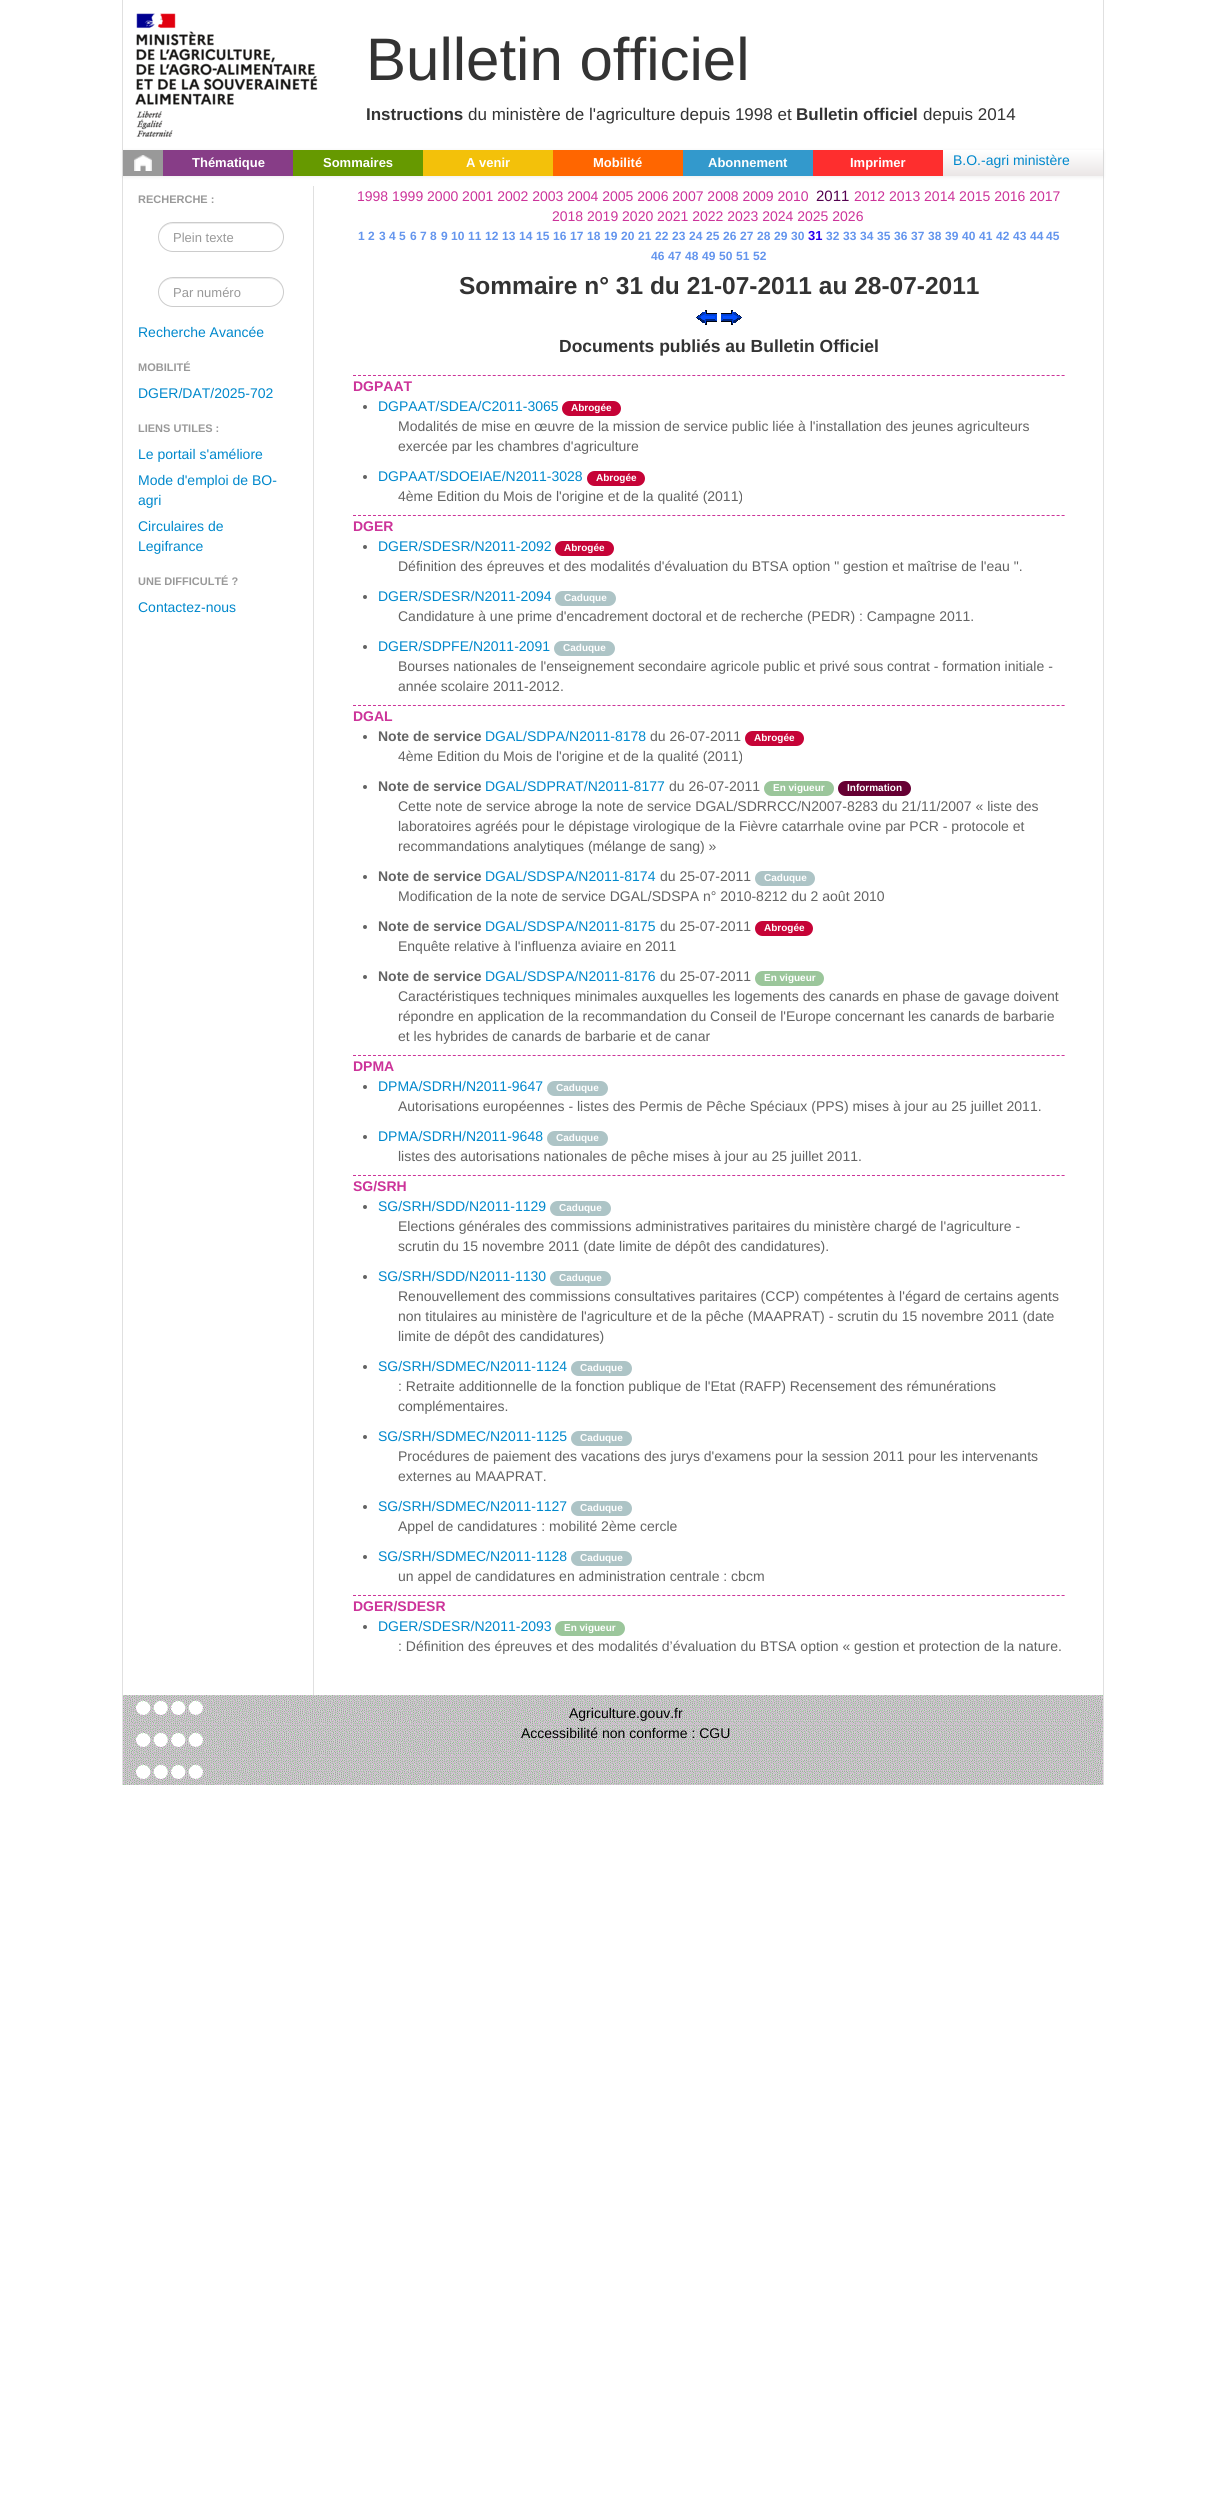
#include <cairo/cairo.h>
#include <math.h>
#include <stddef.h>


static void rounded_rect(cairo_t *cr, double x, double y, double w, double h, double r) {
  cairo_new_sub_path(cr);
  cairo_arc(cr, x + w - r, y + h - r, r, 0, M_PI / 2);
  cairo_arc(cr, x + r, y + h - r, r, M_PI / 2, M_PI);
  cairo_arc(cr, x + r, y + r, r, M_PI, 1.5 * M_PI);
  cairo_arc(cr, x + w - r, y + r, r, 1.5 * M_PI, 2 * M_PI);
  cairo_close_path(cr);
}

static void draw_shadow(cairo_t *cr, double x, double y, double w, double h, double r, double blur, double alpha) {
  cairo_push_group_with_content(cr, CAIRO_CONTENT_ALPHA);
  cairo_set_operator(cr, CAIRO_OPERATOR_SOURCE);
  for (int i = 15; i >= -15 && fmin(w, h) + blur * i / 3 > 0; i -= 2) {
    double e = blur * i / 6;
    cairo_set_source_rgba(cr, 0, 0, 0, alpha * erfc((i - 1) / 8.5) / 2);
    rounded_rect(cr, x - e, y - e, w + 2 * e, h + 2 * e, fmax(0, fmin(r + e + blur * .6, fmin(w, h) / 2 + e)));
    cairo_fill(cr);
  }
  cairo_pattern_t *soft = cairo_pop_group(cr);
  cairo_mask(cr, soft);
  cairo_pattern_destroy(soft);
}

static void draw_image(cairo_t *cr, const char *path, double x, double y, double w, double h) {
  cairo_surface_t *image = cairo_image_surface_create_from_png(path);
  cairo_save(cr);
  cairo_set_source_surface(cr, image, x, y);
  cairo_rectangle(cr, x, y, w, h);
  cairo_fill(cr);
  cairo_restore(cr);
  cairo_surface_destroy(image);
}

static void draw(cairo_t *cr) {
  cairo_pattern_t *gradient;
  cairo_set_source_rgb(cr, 1, 1, 1);
  cairo_paint(cr);
  cairo_set_source_rgb(cr, 224 / 255.0, 224 / 255.0, 224 / 255.0);
  cairo_rectangle(cr, 1103, 0, 1, 1785);
  cairo_fill(cr);
  cairo_rectangle(cr, 122, 0, 1, 1785);
  cairo_fill(cr);
  draw_image(cr, "images/1.png", 135, 13, 183, 124);
  cairo_set_source_rgb(cr, 0, 0, 0);
  draw_shadow(cr, 123, 151, 980, 26, 0, 2, 0.07);
  gradient = cairo_pattern_create_linear(613, 150, 613, 176);
  cairo_pattern_add_color_stop_rgba(gradient, 0, 1, 1, 1, 1);
  cairo_pattern_add_color_stop_rgba(gradient, 1, 234 / 255.0, 229 / 255.0, 229 / 255.0, 1);
  cairo_set_source(cr, gradient);
  cairo_pattern_destroy(gradient);
  cairo_rectangle(cr, 943, 150, 160, 26);
  cairo_fill(cr);
  cairo_set_source_rgb(cr, 153 / 255.0, 153 / 255.0, 153 / 255.0);
  cairo_rectangle(cr, 123, 150, 40, 26);
  cairo_fill(cr);
  draw_image(cr, "images/2.png", 134, 155, 18, 16);
  cairo_set_source_rgb(cr, 135 / 255.0, 61 / 255.0, 135 / 255.0);
  cairo_rectangle(cr, 163, 150, 130, 26);
  cairo_fill(cr);
  cairo_set_source_rgb(cr, 102 / 255.0, 153 / 255.0, 0);
  cairo_rectangle(cr, 293, 150, 130, 26);
  cairo_fill(cr);
  cairo_set_source_rgb(cr, 243 / 255.0, 193 / 255.0, 10 / 255.0);
  cairo_rectangle(cr, 423, 150, 130, 26);
  cairo_fill(cr);
  cairo_set_source_rgb(cr, 1, 102 / 255.0, 0);
  cairo_rectangle(cr, 553, 150, 130, 26);
  cairo_fill(cr);
  cairo_set_source_rgb(cr, 51 / 255.0, 153 / 255.0, 204 / 255.0);
  cairo_rectangle(cr, 683, 150, 130, 26);
  cairo_fill(cr);
  cairo_set_source_rgb(cr, 254 / 255.0, 46 / 255.0, 46 / 255.0);
  cairo_rectangle(cr, 813, 150, 130, 26);
  cairo_fill(cr);
  cairo_set_source_rgb(cr, 236 / 255.0, 236 / 255.0, 236 / 255.0);
  cairo_new_path(cr);
  cairo_move_to(cr, 173, 224);
  cairo_line_to(cr, 269, 224);
  cairo_curve_to(cr, 277, 224, 283, 230, 283, 237);
  cairo_curve_to(cr, 283, 229, 277, 223, 269, 223);
  cairo_line_to(cr, 173, 223);
  cairo_curve_to(cr, 165, 223, 159, 229, 159, 237);
  cairo_curve_to(cr, 159, 230, 165, 224, 173, 224);
  cairo_close_path(cr);
  cairo_fill(cr);
  rounded_rect(cr, 158.5, 222.5, 125, 29, 14.5);
  cairo_set_source_rgb(cr, 204 / 255.0, 204 / 255.0, 204 / 255.0);
  cairo_set_line_width(cr, 1);
  cairo_stroke(cr);
  cairo_set_source_rgb(cr, 236 / 255.0, 236 / 255.0, 236 / 255.0);
  cairo_new_path(cr);
  cairo_move_to(cr, 173, 279);
  cairo_line_to(cr, 269, 279);
  cairo_curve_to(cr, 277, 279, 283, 285, 283, 292);
  cairo_curve_to(cr, 283, 284, 277, 278, 269, 278);
  cairo_line_to(cr, 173, 278);
  cairo_curve_to(cr, 165, 278, 159, 284, 159, 292);
  cairo_curve_to(cr, 159, 285, 165, 279, 173, 279);
  cairo_close_path(cr);
  cairo_fill(cr);
  rounded_rect(cr, 158.5, 277.5, 125, 29, 14.5);
  cairo_set_source_rgb(cr, 204 / 255.0, 204 / 255.0, 204 / 255.0);
  cairo_stroke(cr);
  cairo_set_source_rgb(cr, 224 / 255.0, 224 / 255.0, 224 / 255.0);
  cairo_rectangle(cr, 313, 186, 1, 1509);
  cairo_fill(cr);
  draw_image(cr, "images/3.png", 696, 310, 21, 15);
  draw_image(cr, "images/4.png", 721, 310, 21, 15);
  cairo_new_path(cr);
  cairo_move_to(cr, 353, 375.5);
  cairo_line_to(cr, 1065, 375.5);
  cairo_set_source_rgb(cr, 204 / 255.0, 51 / 255.0, 153 / 255.0);
  cairo_set_dash(cr, (double[]){3, 1.99}, 2, 0);
  cairo_stroke(cr);
  cairo_set_source_rgb(cr, 99 / 255.0, 99 / 255.0, 99 / 255.0);
  cairo_arc(cr, 365, 407, 2, 0, 2 * M_PI);
  cairo_fill(cr);
  cairo_set_source_rgb(cr, 198 / 255.0, 3 / 255.0, 55 / 255.0);
  rounded_rect(cr, 562, 401, 59, 15, 7.5);
  cairo_fill(cr);
  cairo_set_source_rgb(cr, 99 / 255.0, 99 / 255.0, 99 / 255.0);
  cairo_arc(cr, 365, 477, 2, 0, 2 * M_PI);
  cairo_fill(cr);
  cairo_set_source_rgb(cr, 198 / 255.0, 3 / 255.0, 55 / 255.0);
  rounded_rect(cr, 587, 471, 58, 15, 7.5);
  cairo_fill(cr);
  cairo_new_path(cr);
  cairo_move_to(cr, 353, 515.5);
  cairo_line_to(cr, 1065, 515.5);
  cairo_set_source_rgb(cr, 204 / 255.0, 51 / 255.0, 153 / 255.0);
  cairo_stroke(cr);
  cairo_set_source_rgb(cr, 99 / 255.0, 99 / 255.0, 99 / 255.0);
  cairo_arc(cr, 365, 547, 2, 0, 2 * M_PI);
  cairo_fill(cr);
  cairo_set_source_rgb(cr, 198 / 255.0, 3 / 255.0, 55 / 255.0);
  rounded_rect(cr, 555, 541, 59, 15, 7.5);
  cairo_fill(cr);
  cairo_set_source_rgb(cr, 99 / 255.0, 99 / 255.0, 99 / 255.0);
  cairo_arc(cr, 365, 597, 2, 0, 2 * M_PI);
  cairo_fill(cr);
  cairo_set_source_rgb(cr, 173 / 255.0, 196 / 255.0, 198 / 255.0);
  rounded_rect(cr, 555, 591, 61, 15, 7.5);
  cairo_fill(cr);
  cairo_set_source_rgb(cr, 99 / 255.0, 99 / 255.0, 99 / 255.0);
  cairo_arc(cr, 365, 647, 2, 0, 2 * M_PI);
  cairo_fill(cr);
  cairo_set_source_rgb(cr, 173 / 255.0, 196 / 255.0, 198 / 255.0);
  rounded_rect(cr, 554, 641, 61, 15, 7.5);
  cairo_fill(cr);
  cairo_new_path(cr);
  cairo_move_to(cr, 353, 705.5);
  cairo_line_to(cr, 1065, 705.5);
  cairo_set_source_rgb(cr, 204 / 255.0, 51 / 255.0, 153 / 255.0);
  cairo_stroke(cr);
  cairo_set_source_rgb(cr, 99 / 255.0, 99 / 255.0, 99 / 255.0);
  cairo_arc(cr, 365, 737, 2, 0, 2 * M_PI);
  cairo_fill(cr);
  cairo_set_source_rgb(cr, 198 / 255.0, 3 / 255.0, 55 / 255.0);
  rounded_rect(cr, 745, 731, 59, 15, 7.5);
  cairo_fill(cr);
  cairo_set_source_rgb(cr, 99 / 255.0, 99 / 255.0, 99 / 255.0);
  cairo_arc(cr, 365, 787, 2, 0, 2 * M_PI);
  cairo_fill(cr);
  cairo_set_source_rgb(cr, 155 / 255.0, 198 / 255.0, 155 / 255.0);
  rounded_rect(cr, 764, 781, 70, 15, 7.5);
  cairo_fill(cr);
  cairo_set_source_rgb(cr, 102 / 255.0, 0, 51 / 255.0);
  rounded_rect(cr, 838, 781, 73, 15, 7.5);
  cairo_fill(cr);
  cairo_set_source_rgb(cr, 99 / 255.0, 99 / 255.0, 99 / 255.0);
  cairo_arc(cr, 365, 877, 2, 0, 2 * M_PI);
  cairo_fill(cr);
  cairo_set_source_rgb(cr, 173 / 255.0, 196 / 255.0, 198 / 255.0);
  rounded_rect(cr, 755, 871, 60, 15, 7.5);
  cairo_fill(cr);
  cairo_set_source_rgb(cr, 99 / 255.0, 99 / 255.0, 99 / 255.0);
  cairo_arc(cr, 365, 927, 2, 0, 2 * M_PI);
  cairo_fill(cr);
  cairo_set_source_rgb(cr, 198 / 255.0, 3 / 255.0, 55 / 255.0);
  rounded_rect(cr, 755, 921, 58, 15, 7.5);
  cairo_fill(cr);
  cairo_set_source_rgb(cr, 99 / 255.0, 99 / 255.0, 99 / 255.0);
  cairo_arc(cr, 365, 977, 2, 0, 2 * M_PI);
  cairo_fill(cr);
  cairo_set_source_rgb(cr, 155 / 255.0, 198 / 255.0, 155 / 255.0);
  rounded_rect(cr, 755, 971, 69, 15, 7.5);
  cairo_fill(cr);
  cairo_new_path(cr);
  cairo_move_to(cr, 353, 1055.5);
  cairo_line_to(cr, 1065, 1055.5);
  cairo_set_source_rgb(cr, 204 / 255.0, 51 / 255.0, 153 / 255.0);
  cairo_stroke(cr);
  cairo_set_source_rgb(cr, 99 / 255.0, 99 / 255.0, 99 / 255.0);
  cairo_arc(cr, 365, 1087, 2, 0, 2 * M_PI);
  cairo_fill(cr);
  cairo_set_source_rgb(cr, 173 / 255.0, 196 / 255.0, 198 / 255.0);
  rounded_rect(cr, 547, 1081, 61, 15, 7.5);
  cairo_fill(cr);
  cairo_set_source_rgb(cr, 99 / 255.0, 99 / 255.0, 99 / 255.0);
  cairo_arc(cr, 365, 1137, 2, 0, 2 * M_PI);
  cairo_fill(cr);
  cairo_set_source_rgb(cr, 173 / 255.0, 196 / 255.0, 198 / 255.0);
  rounded_rect(cr, 547, 1131, 61, 15, 7.5);
  cairo_fill(cr);
  cairo_new_path(cr);
  cairo_move_to(cr, 353, 1175.5);
  cairo_line_to(cr, 1065, 1175.5);
  cairo_set_source_rgb(cr, 204 / 255.0, 51 / 255.0, 153 / 255.0);
  cairo_stroke(cr);
  cairo_set_source_rgb(cr, 99 / 255.0, 99 / 255.0, 99 / 255.0);
  cairo_arc(cr, 365, 1207, 2, 0, 2 * M_PI);
  cairo_fill(cr);
  cairo_set_source_rgb(cr, 173 / 255.0, 196 / 255.0, 198 / 255.0);
  rounded_rect(cr, 550, 1201, 61, 15, 7.5);
  cairo_fill(cr);
  cairo_set_source_rgb(cr, 99 / 255.0, 99 / 255.0, 99 / 255.0);
  cairo_arc(cr, 365, 1277, 2, 0, 2 * M_PI);
  cairo_fill(cr);
  cairo_set_source_rgb(cr, 173 / 255.0, 196 / 255.0, 198 / 255.0);
  rounded_rect(cr, 550, 1271, 61, 15, 7.5);
  cairo_fill(cr);
  cairo_set_source_rgb(cr, 99 / 255.0, 99 / 255.0, 99 / 255.0);
  cairo_arc(cr, 365, 1367, 2, 0, 2 * M_PI);
  cairo_fill(cr);
  cairo_set_source_rgb(cr, 173 / 255.0, 196 / 255.0, 198 / 255.0);
  rounded_rect(cr, 571, 1361, 61, 15, 7.5);
  cairo_fill(cr);
  cairo_set_source_rgb(cr, 99 / 255.0, 99 / 255.0, 99 / 255.0);
  cairo_arc(cr, 365, 1437, 2, 0, 2 * M_PI);
  cairo_fill(cr);
  cairo_set_source_rgb(cr, 173 / 255.0, 196 / 255.0, 198 / 255.0);
  rounded_rect(cr, 571, 1431, 61, 15, 7.5);
  cairo_fill(cr);
  cairo_set_source_rgb(cr, 99 / 255.0, 99 / 255.0, 99 / 255.0);
  cairo_arc(cr, 365, 1507, 2, 0, 2 * M_PI);
  cairo_fill(cr);
  cairo_set_source_rgb(cr, 173 / 255.0, 196 / 255.0, 198 / 255.0);
  rounded_rect(cr, 571, 1501, 61, 15, 7.5);
  cairo_fill(cr);
  cairo_set_source_rgb(cr, 99 / 255.0, 99 / 255.0, 99 / 255.0);
  cairo_arc(cr, 365, 1557, 2, 0, 2 * M_PI);
  cairo_fill(cr);
  cairo_set_source_rgb(cr, 173 / 255.0, 196 / 255.0, 198 / 255.0);
  rounded_rect(cr, 571, 1551, 61, 15, 7.5);
  cairo_fill(cr);
  cairo_new_path(cr);
  cairo_move_to(cr, 353, 1595.5);
  cairo_line_to(cr, 1065, 1595.5);
  cairo_set_source_rgb(cr, 204 / 255.0, 51 / 255.0, 153 / 255.0);
  cairo_stroke(cr);
  cairo_set_source_rgb(cr, 99 / 255.0, 99 / 255.0, 99 / 255.0);
  cairo_arc(cr, 365, 1627, 2, 0, 2 * M_PI);
  cairo_fill(cr);
  cairo_set_source_rgb(cr, 155 / 255.0, 198 / 255.0, 155 / 255.0);
  rounded_rect(cr, 555, 1621, 70, 15, 7.5);
  cairo_fill(cr);
  draw_image(cr, "images/5.png", 123, 1695, 980, 90);
  cairo_select_font_face(cr, "Liberation Sans", CAIRO_FONT_SLANT_NORMAL, CAIRO_FONT_WEIGHT_NORMAL);
  cairo_set_font_size(cr, 60);
  cairo_set_source_rgb(cr, 51 / 255.0, 51 / 255.0, 51 / 255.0);
  cairo_move_to(cr, 366, 80);
  cairo_show_text(cr, "Bulletin officiel");
  cairo_select_font_face(cr, "Liberation Sans", CAIRO_FONT_SLANT_NORMAL, CAIRO_FONT_WEIGHT_BOLD);
  cairo_set_font_size(cr, 17);
  cairo_move_to(cr, 366, 120);
  cairo_show_text(cr, "Instructions");
  cairo_select_font_face(cr, "Liberation Sans", CAIRO_FONT_SLANT_NORMAL, CAIRO_FONT_WEIGHT_NORMAL);
  cairo_move_to(cr, 468, 120);
  cairo_show_text(cr, "du ministère de l'agriculture depuis 1998 et");
  cairo_select_font_face(cr, "Liberation Sans", CAIRO_FONT_SLANT_NORMAL, CAIRO_FONT_WEIGHT_BOLD);
  cairo_move_to(cr, 796, 120);
  cairo_show_text(cr, "Bulletin officiel");
  cairo_select_font_face(cr, "Liberation Sans", CAIRO_FONT_SLANT_NORMAL, CAIRO_FONT_WEIGHT_NORMAL);
  cairo_move_to(cr, 923, 120);
  cairo_show_text(cr, "depuis 2014");
  cairo_select_font_face(cr, "Liberation Sans", CAIRO_FONT_SLANT_NORMAL, CAIRO_FONT_WEIGHT_BOLD);
  cairo_set_font_size(cr, 13);
  cairo_set_source_rgb(cr, 1, 1, 1);
  cairo_move_to(cr, 192, 167);
  cairo_show_text(cr, "Thématique");
  cairo_move_to(cr, 323, 167);
  cairo_show_text(cr, "Sommaires");
  cairo_move_to(cr, 466, 167);
  cairo_show_text(cr, "A venir");
  cairo_move_to(cr, 593, 167);
  cairo_show_text(cr, "Mobilité");
  cairo_move_to(cr, 708, 167);
  cairo_show_text(cr, "Abonnement");
  cairo_move_to(cr, 850, 167);
  cairo_show_text(cr, "Imprimer");
  cairo_select_font_face(cr, "Liberation Sans", CAIRO_FONT_SLANT_NORMAL, CAIRO_FONT_WEIGHT_NORMAL);
  cairo_set_font_size(cr, 14);
  cairo_set_source_rgb(cr, 0, 136 / 255.0, 204 / 255.0);
  cairo_move_to(cr, 953, 165);
  cairo_show_text(cr, "B.O.-agri ministère");
  cairo_select_font_face(cr, "Liberation Sans", CAIRO_FONT_SLANT_NORMAL, CAIRO_FONT_WEIGHT_BOLD);
  cairo_set_font_size(cr, 11);
  cairo_set_source_rgb(cr, 153 / 255.0, 153 / 255.0, 153 / 255.0);
  cairo_move_to(cr, 138, 203);
  cairo_show_text(cr, "RECHERCHE :");
  cairo_select_font_face(cr, "Liberation Sans", CAIRO_FONT_SLANT_NORMAL, CAIRO_FONT_WEIGHT_NORMAL);
  cairo_set_font_size(cr, 13);
  cairo_move_to(cr, 173, 242);
  cairo_show_text(cr, "Plein texte");
  cairo_move_to(cr, 173, 297);
  cairo_show_text(cr, "Par numéro");
  cairo_set_font_size(cr, 14);
  cairo_set_source_rgb(cr, 0, 136 / 255.0, 204 / 255.0);
  cairo_move_to(cr, 138, 337);
  cairo_show_text(cr, "Recherche Avancée");
  cairo_select_font_face(cr, "Liberation Sans", CAIRO_FONT_SLANT_NORMAL, CAIRO_FONT_WEIGHT_BOLD);
  cairo_set_font_size(cr, 11);
  cairo_set_source_rgb(cr, 153 / 255.0, 153 / 255.0, 153 / 255.0);
  cairo_move_to(cr, 138, 371);
  cairo_show_text(cr, "MOBILITÉ");
  cairo_select_font_face(cr, "Liberation Sans", CAIRO_FONT_SLANT_NORMAL, CAIRO_FONT_WEIGHT_NORMAL);
  cairo_set_font_size(cr, 14);
  cairo_set_source_rgb(cr, 0, 136 / 255.0, 204 / 255.0);
  cairo_move_to(cr, 138, 398);
  cairo_show_text(cr, "DGER/DAT/2025-702");
  cairo_select_font_face(cr, "Liberation Sans", CAIRO_FONT_SLANT_NORMAL, CAIRO_FONT_WEIGHT_BOLD);
  cairo_set_font_size(cr, 11);
  cairo_set_source_rgb(cr, 153 / 255.0, 153 / 255.0, 153 / 255.0);
  cairo_move_to(cr, 138, 432);
  cairo_show_text(cr, "LIENS UTILES :");
  cairo_select_font_face(cr, "Liberation Sans", CAIRO_FONT_SLANT_NORMAL, CAIRO_FONT_WEIGHT_NORMAL);
  cairo_set_font_size(cr, 14);
  cairo_set_source_rgb(cr, 0, 136 / 255.0, 204 / 255.0);
  cairo_move_to(cr, 138, 459);
  cairo_show_text(cr, "Le portail s'améliore");
  cairo_move_to(cr, 138, 485);
  cairo_show_text(cr, "Mode d'emploi de BO-");
  cairo_move_to(cr, 138, 505);
  cairo_show_text(cr, "agri");
  cairo_move_to(cr, 138, 531);
  cairo_show_text(cr, "Circulaires de");
  cairo_move_to(cr, 138, 551);
  cairo_show_text(cr, "Legifrance");
  cairo_select_font_face(cr, "Liberation Sans", CAIRO_FONT_SLANT_NORMAL, CAIRO_FONT_WEIGHT_BOLD);
  cairo_set_font_size(cr, 11);
  cairo_set_source_rgb(cr, 153 / 255.0, 153 / 255.0, 153 / 255.0);
  cairo_move_to(cr, 138, 585);
  cairo_show_text(cr, "UNE DIFFICULTÉ ?");
  cairo_select_font_face(cr, "Liberation Sans", CAIRO_FONT_SLANT_NORMAL, CAIRO_FONT_WEIGHT_NORMAL);
  cairo_set_font_size(cr, 14);
  cairo_set_source_rgb(cr, 0, 136 / 255.0, 204 / 255.0);
  cairo_move_to(cr, 138, 612);
  cairo_show_text(cr, "Contactez-nous");
  cairo_set_source_rgb(cr, 204 / 255.0, 51 / 255.0, 153 / 255.0);
  cairo_move_to(cr, 357, 201);
  cairo_show_text(cr, "1998 1999 2000 2001 2002 2003 2004 2005 2006 2007 2008 2009 2010");
  cairo_set_font_size(cr, 15);
  cairo_set_source_rgb(cr, 84 / 255.0, 0, 79 / 255.0);
  cairo_move_to(cr, 816, 201);
  cairo_show_text(cr, "2011");
  cairo_set_font_size(cr, 14);
  cairo_set_source_rgb(cr, 204 / 255.0, 51 / 255.0, 153 / 255.0);
  cairo_move_to(cr, 854, 201);
  cairo_show_text(cr, "2012 2013 2014 2015 2016 2017");
  cairo_move_to(cr, 552, 221);
  cairo_show_text(cr, "2018 2019 2020 2021 2022 2023 2024 2025 2026");
  cairo_select_font_face(cr, "Liberation Sans", CAIRO_FONT_SLANT_NORMAL, CAIRO_FONT_WEIGHT_BOLD);
  cairo_set_font_size(cr, 12);
  cairo_set_source_rgb(cr, 100 / 255.0, 149 / 255.0, 237 / 255.0);
  cairo_move_to(cr, 358, 240);
  cairo_show_text(cr, "1");
  cairo_move_to(cr, 368, 240);
  cairo_show_text(cr, "2");
  cairo_move_to(cr, 379, 240);
  cairo_show_text(cr, "3");
  cairo_move_to(cr, 389, 240);
  cairo_show_text(cr, "4");
  cairo_move_to(cr, 399, 240);
  cairo_show_text(cr, "5");
  cairo_move_to(cr, 410, 240);
  cairo_show_text(cr, "6");
  cairo_move_to(cr, 420, 240);
  cairo_show_text(cr, "7");
  cairo_move_to(cr, 430, 240);
  cairo_show_text(cr, "8");
  cairo_move_to(cr, 441, 240);
  cairo_show_text(cr, "9");
  cairo_move_to(cr, 451, 240);
  cairo_show_text(cr, "10");
  cairo_move_to(cr, 468, 240);
  cairo_show_text(cr, "11");
  cairo_move_to(cr, 485, 240);
  cairo_show_text(cr, "12");
  cairo_move_to(cr, 502, 240);
  cairo_show_text(cr, "13");
  cairo_move_to(cr, 519, 240);
  cairo_show_text(cr, "14");
  cairo_move_to(cr, 536, 240);
  cairo_show_text(cr, "15");
  cairo_move_to(cr, 553, 240);
  cairo_show_text(cr, "16");
  cairo_move_to(cr, 570, 240);
  cairo_show_text(cr, "17");
  cairo_move_to(cr, 587, 240);
  cairo_show_text(cr, "18");
  cairo_move_to(cr, 604, 240);
  cairo_show_text(cr, "19");
  cairo_move_to(cr, 621, 240);
  cairo_show_text(cr, "20");
  cairo_move_to(cr, 638, 240);
  cairo_show_text(cr, "21");
  cairo_move_to(cr, 655, 240);
  cairo_show_text(cr, "22");
  cairo_move_to(cr, 672, 240);
  cairo_show_text(cr, "23");
  cairo_move_to(cr, 689, 240);
  cairo_show_text(cr, "24");
  cairo_move_to(cr, 706, 240);
  cairo_show_text(cr, "25");
  cairo_move_to(cr, 723, 240);
  cairo_show_text(cr, "26");
  cairo_move_to(cr, 740, 240);
  cairo_show_text(cr, "27");
  cairo_move_to(cr, 757, 240);
  cairo_show_text(cr, "28");
  cairo_move_to(cr, 774, 240);
  cairo_show_text(cr, "29");
  cairo_move_to(cr, 791, 240);
  cairo_show_text(cr, "30");
  cairo_set_font_size(cr, 13);
  cairo_set_source_rgb(cr, 40 / 255.0, 0, 240 / 255.0);
  cairo_move_to(cr, 808, 240);
  cairo_show_text(cr, "31");
  cairo_set_font_size(cr, 12);
  cairo_set_source_rgb(cr, 100 / 255.0, 149 / 255.0, 237 / 255.0);
  cairo_move_to(cr, 826, 240);
  cairo_show_text(cr, "32");
  cairo_move_to(cr, 843, 240);
  cairo_show_text(cr, "33");
  cairo_move_to(cr, 860, 240);
  cairo_show_text(cr, "34");
  cairo_move_to(cr, 877, 240);
  cairo_show_text(cr, "35");
  cairo_move_to(cr, 894, 240);
  cairo_show_text(cr, "36");
  cairo_move_to(cr, 911, 240);
  cairo_show_text(cr, "37");
  cairo_move_to(cr, 928, 240);
  cairo_show_text(cr, "38");
  cairo_move_to(cr, 945, 240);
  cairo_show_text(cr, "39");
  cairo_move_to(cr, 962, 240);
  cairo_show_text(cr, "40");
  cairo_move_to(cr, 979, 240);
  cairo_show_text(cr, "41");
  cairo_move_to(cr, 996, 240);
  cairo_show_text(cr, "42");
  cairo_move_to(cr, 1013, 240);
  cairo_show_text(cr, "43");
  cairo_move_to(cr, 1030, 240);
  cairo_show_text(cr, "44");
  cairo_move_to(cr, 1046, 240);
  cairo_show_text(cr, "45");
  cairo_move_to(cr, 651, 260);
  cairo_show_text(cr, "46");
  cairo_move_to(cr, 668, 260);
  cairo_show_text(cr, "47");
  cairo_move_to(cr, 685, 260);
  cairo_show_text(cr, "48");
  cairo_move_to(cr, 702, 260);
  cairo_show_text(cr, "49");
  cairo_move_to(cr, 719, 260);
  cairo_show_text(cr, "50");
  cairo_move_to(cr, 736, 260);
  cairo_show_text(cr, "51");
  cairo_move_to(cr, 753, 260);
  cairo_show_text(cr, "52");
  cairo_set_font_size(cr, 24.5);
  cairo_set_source_rgb(cr, 51 / 255.0, 51 / 255.0, 51 / 255.0);
  cairo_move_to(cr, 459, 294);
  cairo_show_text(cr, "Sommaire n° 31 du 21-07-2011 au 28-07-2011");
  cairo_set_font_size(cr, 17.5);
  cairo_move_to(cr, 559, 352);
  cairo_show_text(cr, "Documents publiés au Bulletin Officiel");
  cairo_set_font_size(cr, 14);
  cairo_set_source_rgb(cr, 204 / 255.0, 51 / 255.0, 153 / 255.0);
  cairo_move_to(cr, 353, 391);
  cairo_show_text(cr, "DGPAAT");
  cairo_select_font_face(cr, "Liberation Sans", CAIRO_FONT_SLANT_NORMAL, CAIRO_FONT_WEIGHT_NORMAL);
  cairo_set_source_rgb(cr, 0, 136 / 255.0, 204 / 255.0);
  cairo_move_to(cr, 378, 411);
  cairo_show_text(cr, "DGPAAT/SDEA/C2011-3065");
  cairo_select_font_face(cr, "Liberation Sans", CAIRO_FONT_SLANT_NORMAL, CAIRO_FONT_WEIGHT_BOLD);
  cairo_set_font_size(cr, 10);
  cairo_set_source_rgb(cr, 1, 1, 1);
  cairo_move_to(cr, 571, 411);
  cairo_show_text(cr, "Abrogée");
  cairo_select_font_face(cr, "Liberation Sans", CAIRO_FONT_SLANT_NORMAL, CAIRO_FONT_WEIGHT_NORMAL);
  cairo_set_font_size(cr, 14);
  cairo_set_source_rgb(cr, 99 / 255.0, 99 / 255.0, 99 / 255.0);
  cairo_move_to(cr, 398, 431);
  cairo_show_text(cr, "Modalités de mise en œuvre de la mission de service public liée à l'installation des jeunes agriculteurs");
  cairo_move_to(cr, 398, 451);
  cairo_show_text(cr, "exercée par les chambres d'agriculture");
  cairo_set_source_rgb(cr, 0, 136 / 255.0, 204 / 255.0);
  cairo_move_to(cr, 378, 481);
  cairo_show_text(cr, "DGPAAT/SDOEIAE/N2011-3028");
  cairo_select_font_face(cr, "Liberation Sans", CAIRO_FONT_SLANT_NORMAL, CAIRO_FONT_WEIGHT_BOLD);
  cairo_set_font_size(cr, 10);
  cairo_set_source_rgb(cr, 1, 1, 1);
  cairo_move_to(cr, 596, 481);
  cairo_show_text(cr, "Abrogée");
  cairo_select_font_face(cr, "Liberation Sans", CAIRO_FONT_SLANT_NORMAL, CAIRO_FONT_WEIGHT_NORMAL);
  cairo_set_font_size(cr, 14);
  cairo_set_source_rgb(cr, 99 / 255.0, 99 / 255.0, 99 / 255.0);
  cairo_move_to(cr, 398, 501);
  cairo_show_text(cr, "4ème Edition du Mois de l'origine et de la qualité (2011)");
  cairo_select_font_face(cr, "Liberation Sans", CAIRO_FONT_SLANT_NORMAL, CAIRO_FONT_WEIGHT_BOLD);
  cairo_set_source_rgb(cr, 204 / 255.0, 51 / 255.0, 153 / 255.0);
  cairo_move_to(cr, 353, 531);
  cairo_show_text(cr, "DGER");
  cairo_select_font_face(cr, "Liberation Sans", CAIRO_FONT_SLANT_NORMAL, CAIRO_FONT_WEIGHT_NORMAL);
  cairo_set_source_rgb(cr, 0, 136 / 255.0, 204 / 255.0);
  cairo_move_to(cr, 378, 551);
  cairo_show_text(cr, "DGER/SDESR/N2011-2092");
  cairo_select_font_face(cr, "Liberation Sans", CAIRO_FONT_SLANT_NORMAL, CAIRO_FONT_WEIGHT_BOLD);
  cairo_set_font_size(cr, 10);
  cairo_set_source_rgb(cr, 1, 1, 1);
  cairo_move_to(cr, 564, 551);
  cairo_show_text(cr, "Abrogée");
  cairo_select_font_face(cr, "Liberation Sans", CAIRO_FONT_SLANT_NORMAL, CAIRO_FONT_WEIGHT_NORMAL);
  cairo_set_font_size(cr, 14);
  cairo_set_source_rgb(cr, 99 / 255.0, 99 / 255.0, 99 / 255.0);
  cairo_move_to(cr, 398, 571);
  cairo_show_text(cr, "Définition des épreuves et des modalités d'évaluation du BTSA option \" gestion et maîtrise de l'eau \".");
  cairo_set_source_rgb(cr, 0, 136 / 255.0, 204 / 255.0);
  cairo_move_to(cr, 378, 601);
  cairo_show_text(cr, "DGER/SDESR/N2011-2094");
  cairo_select_font_face(cr, "Liberation Sans", CAIRO_FONT_SLANT_NORMAL, CAIRO_FONT_WEIGHT_BOLD);
  cairo_set_font_size(cr, 10);
  cairo_set_source_rgb(cr, 1, 1, 1);
  cairo_move_to(cr, 564, 601);
  cairo_show_text(cr, "Caduque");
  cairo_select_font_face(cr, "Liberation Sans", CAIRO_FONT_SLANT_NORMAL, CAIRO_FONT_WEIGHT_NORMAL);
  cairo_set_font_size(cr, 14);
  cairo_set_source_rgb(cr, 99 / 255.0, 99 / 255.0, 99 / 255.0);
  cairo_move_to(cr, 398, 621);
  cairo_show_text(cr, "Candidature à une prime d'encadrement doctoral et de recherche (PEDR) : Campagne 2011.");
  cairo_set_source_rgb(cr, 0, 136 / 255.0, 204 / 255.0);
  cairo_move_to(cr, 378, 651);
  cairo_show_text(cr, "DGER/SDPFE/N2011-2091");
  cairo_select_font_face(cr, "Liberation Sans", CAIRO_FONT_SLANT_NORMAL, CAIRO_FONT_WEIGHT_BOLD);
  cairo_set_font_size(cr, 10);
  cairo_set_source_rgb(cr, 1, 1, 1);
  cairo_move_to(cr, 563, 651);
  cairo_show_text(cr, "Caduque");
  cairo_select_font_face(cr, "Liberation Sans", CAIRO_FONT_SLANT_NORMAL, CAIRO_FONT_WEIGHT_NORMAL);
  cairo_set_font_size(cr, 14);
  cairo_set_source_rgb(cr, 99 / 255.0, 99 / 255.0, 99 / 255.0);
  cairo_move_to(cr, 398, 671);
  cairo_show_text(cr, "Bourses nationales de l'enseignement secondaire agricole public et privé sous contrat - formation initiale -");
  cairo_move_to(cr, 398, 691);
  cairo_show_text(cr, "année scolaire 2011-2012.");
  cairo_select_font_face(cr, "Liberation Sans", CAIRO_FONT_SLANT_NORMAL, CAIRO_FONT_WEIGHT_BOLD);
  cairo_set_source_rgb(cr, 204 / 255.0, 51 / 255.0, 153 / 255.0);
  cairo_move_to(cr, 353, 721);
  cairo_show_text(cr, "DGAL");
  cairo_set_source_rgb(cr, 99 / 255.0, 99 / 255.0, 99 / 255.0);
  cairo_move_to(cr, 378, 741);
  cairo_show_text(cr, "Note de service");
  cairo_select_font_face(cr, "Liberation Sans", CAIRO_FONT_SLANT_NORMAL, CAIRO_FONT_WEIGHT_NORMAL);
  cairo_set_source_rgb(cr, 0, 136 / 255.0, 204 / 255.0);
  cairo_move_to(cr, 485, 741);
  cairo_show_text(cr, "DGAL/SDPA/N2011-8178");
  cairo_set_source_rgb(cr, 99 / 255.0, 99 / 255.0, 99 / 255.0);
  cairo_move_to(cr, 650, 741);
  cairo_show_text(cr, "du 26-07-2011");
  cairo_select_font_face(cr, "Liberation Sans", CAIRO_FONT_SLANT_NORMAL, CAIRO_FONT_WEIGHT_BOLD);
  cairo_set_font_size(cr, 10);
  cairo_set_source_rgb(cr, 1, 1, 1);
  cairo_move_to(cr, 754, 741);
  cairo_show_text(cr, "Abrogée");
  cairo_select_font_face(cr, "Liberation Sans", CAIRO_FONT_SLANT_NORMAL, CAIRO_FONT_WEIGHT_NORMAL);
  cairo_set_font_size(cr, 14);
  cairo_set_source_rgb(cr, 99 / 255.0, 99 / 255.0, 99 / 255.0);
  cairo_move_to(cr, 398, 761);
  cairo_show_text(cr, "4ème Edition du Mois de l'origine et de la qualité (2011)");
  cairo_select_font_face(cr, "Liberation Sans", CAIRO_FONT_SLANT_NORMAL, CAIRO_FONT_WEIGHT_BOLD);
  cairo_move_to(cr, 378, 791);
  cairo_show_text(cr, "Note de service");
  cairo_select_font_face(cr, "Liberation Sans", CAIRO_FONT_SLANT_NORMAL, CAIRO_FONT_WEIGHT_NORMAL);
  cairo_set_source_rgb(cr, 0, 136 / 255.0, 204 / 255.0);
  cairo_move_to(cr, 485, 791);
  cairo_show_text(cr, "DGAL/SDPRAT/N2011-8177");
  cairo_set_source_rgb(cr, 99 / 255.0, 99 / 255.0, 99 / 255.0);
  cairo_move_to(cr, 669, 791);
  cairo_show_text(cr, "du 26-07-2011");
  cairo_select_font_face(cr, "Liberation Sans", CAIRO_FONT_SLANT_NORMAL, CAIRO_FONT_WEIGHT_BOLD);
  cairo_set_font_size(cr, 10);
  cairo_set_source_rgb(cr, 1, 1, 1);
  cairo_move_to(cr, 773, 791);
  cairo_show_text(cr, "En vigueur");
  cairo_move_to(cr, 847, 791);
  cairo_show_text(cr, "Information");
  cairo_select_font_face(cr, "Liberation Sans", CAIRO_FONT_SLANT_NORMAL, CAIRO_FONT_WEIGHT_NORMAL);
  cairo_set_font_size(cr, 14);
  cairo_set_source_rgb(cr, 99 / 255.0, 99 / 255.0, 99 / 255.0);
  cairo_move_to(cr, 398, 811);
  cairo_show_text(cr, "Cette note de service abroge la note de service DGAL/SDRRCC/N2007-8283 du 21/11/2007 « liste des");
  cairo_move_to(cr, 398, 831);
  cairo_show_text(cr, "laboratoires agréés pour le dépistage virologique de la Fièvre catarrhale ovine par PCR - protocole et");
  cairo_move_to(cr, 398, 851);
  cairo_show_text(cr, "recommandations analytiques (mélange de sang) »");
  cairo_select_font_face(cr, "Liberation Sans", CAIRO_FONT_SLANT_NORMAL, CAIRO_FONT_WEIGHT_BOLD);
  cairo_move_to(cr, 378, 881);
  cairo_show_text(cr, "Note de service");
  cairo_select_font_face(cr, "Liberation Sans", CAIRO_FONT_SLANT_NORMAL, CAIRO_FONT_WEIGHT_NORMAL);
  cairo_set_source_rgb(cr, 0, 136 / 255.0, 204 / 255.0);
  cairo_move_to(cr, 485, 881);
  cairo_show_text(cr, "DGAL/SDSPA/N2011-8174");
  cairo_set_source_rgb(cr, 99 / 255.0, 99 / 255.0, 99 / 255.0);
  cairo_move_to(cr, 660, 881);
  cairo_show_text(cr, "du 25-07-2011");
  cairo_select_font_face(cr, "Liberation Sans", CAIRO_FONT_SLANT_NORMAL, CAIRO_FONT_WEIGHT_BOLD);
  cairo_set_font_size(cr, 10);
  cairo_set_source_rgb(cr, 1, 1, 1);
  cairo_move_to(cr, 764, 881);
  cairo_show_text(cr, "Caduque");
  cairo_select_font_face(cr, "Liberation Sans", CAIRO_FONT_SLANT_NORMAL, CAIRO_FONT_WEIGHT_NORMAL);
  cairo_set_font_size(cr, 14);
  cairo_set_source_rgb(cr, 99 / 255.0, 99 / 255.0, 99 / 255.0);
  cairo_move_to(cr, 398, 901);
  cairo_show_text(cr, "Modification de la note de service DGAL/SDSPA n° 2010-8212 du 2 août 2010");
  cairo_select_font_face(cr, "Liberation Sans", CAIRO_FONT_SLANT_NORMAL, CAIRO_FONT_WEIGHT_BOLD);
  cairo_move_to(cr, 378, 931);
  cairo_show_text(cr, "Note de service");
  cairo_select_font_face(cr, "Liberation Sans", CAIRO_FONT_SLANT_NORMAL, CAIRO_FONT_WEIGHT_NORMAL);
  cairo_set_source_rgb(cr, 0, 136 / 255.0, 204 / 255.0);
  cairo_move_to(cr, 485, 931);
  cairo_show_text(cr, "DGAL/SDSPA/N2011-8175");
  cairo_set_source_rgb(cr, 99 / 255.0, 99 / 255.0, 99 / 255.0);
  cairo_move_to(cr, 660, 931);
  cairo_show_text(cr, "du 25-07-2011");
  cairo_select_font_face(cr, "Liberation Sans", CAIRO_FONT_SLANT_NORMAL, CAIRO_FONT_WEIGHT_BOLD);
  cairo_set_font_size(cr, 10);
  cairo_set_source_rgb(cr, 1, 1, 1);
  cairo_move_to(cr, 764, 931);
  cairo_show_text(cr, "Abrogée");
  cairo_select_font_face(cr, "Liberation Sans", CAIRO_FONT_SLANT_NORMAL, CAIRO_FONT_WEIGHT_NORMAL);
  cairo_set_font_size(cr, 14);
  cairo_set_source_rgb(cr, 99 / 255.0, 99 / 255.0, 99 / 255.0);
  cairo_move_to(cr, 398, 951);
  cairo_show_text(cr, "Enquête relative à l'influenza aviaire en 2011");
  cairo_select_font_face(cr, "Liberation Sans", CAIRO_FONT_SLANT_NORMAL, CAIRO_FONT_WEIGHT_BOLD);
  cairo_move_to(cr, 378, 981);
  cairo_show_text(cr, "Note de service");
  cairo_select_font_face(cr, "Liberation Sans", CAIRO_FONT_SLANT_NORMAL, CAIRO_FONT_WEIGHT_NORMAL);
  cairo_set_source_rgb(cr, 0, 136 / 255.0, 204 / 255.0);
  cairo_move_to(cr, 485, 981);
  cairo_show_text(cr, "DGAL/SDSPA/N2011-8176");
  cairo_set_source_rgb(cr, 99 / 255.0, 99 / 255.0, 99 / 255.0);
  cairo_move_to(cr, 660, 981);
  cairo_show_text(cr, "du 25-07-2011");
  cairo_select_font_face(cr, "Liberation Sans", CAIRO_FONT_SLANT_NORMAL, CAIRO_FONT_WEIGHT_BOLD);
  cairo_set_font_size(cr, 10);
  cairo_set_source_rgb(cr, 1, 1, 1);
  cairo_move_to(cr, 764, 981);
  cairo_show_text(cr, "En vigueur");
  cairo_select_font_face(cr, "Liberation Sans", CAIRO_FONT_SLANT_NORMAL, CAIRO_FONT_WEIGHT_NORMAL);
  cairo_set_font_size(cr, 14);
  cairo_set_source_rgb(cr, 99 / 255.0, 99 / 255.0, 99 / 255.0);
  cairo_move_to(cr, 398, 1001);
  cairo_show_text(cr, "Caractéristiques techniques minimales auxquelles les logements des canards en phase de gavage doivent");
  cairo_move_to(cr, 398, 1021);
  cairo_show_text(cr, "répondre en application de la recommandation du Conseil de l'Europe concernant les canards de barbarie");
  cairo_move_to(cr, 398, 1041);
  cairo_show_text(cr, "et les hybrides de canards de barbarie et de canar");
  cairo_select_font_face(cr, "Liberation Sans", CAIRO_FONT_SLANT_NORMAL, CAIRO_FONT_WEIGHT_BOLD);
  cairo_set_source_rgb(cr, 204 / 255.0, 51 / 255.0, 153 / 255.0);
  cairo_move_to(cr, 353, 1071);
  cairo_show_text(cr, "DPMA");
  cairo_select_font_face(cr, "Liberation Sans", CAIRO_FONT_SLANT_NORMAL, CAIRO_FONT_WEIGHT_NORMAL);
  cairo_set_source_rgb(cr, 0, 136 / 255.0, 204 / 255.0);
  cairo_move_to(cr, 378, 1091);
  cairo_show_text(cr, "DPMA/SDRH/N2011-9647");
  cairo_select_font_face(cr, "Liberation Sans", CAIRO_FONT_SLANT_NORMAL, CAIRO_FONT_WEIGHT_BOLD);
  cairo_set_font_size(cr, 10);
  cairo_set_source_rgb(cr, 1, 1, 1);
  cairo_move_to(cr, 556, 1091);
  cairo_show_text(cr, "Caduque");
  cairo_select_font_face(cr, "Liberation Sans", CAIRO_FONT_SLANT_NORMAL, CAIRO_FONT_WEIGHT_NORMAL);
  cairo_set_font_size(cr, 14);
  cairo_set_source_rgb(cr, 99 / 255.0, 99 / 255.0, 99 / 255.0);
  cairo_move_to(cr, 398, 1111);
  cairo_show_text(cr, "Autorisations européennes - listes des Permis de Pêche Spéciaux (PPS) mises à jour au 25 juillet 2011.");
  cairo_set_source_rgb(cr, 0, 136 / 255.0, 204 / 255.0);
  cairo_move_to(cr, 378, 1141);
  cairo_show_text(cr, "DPMA/SDRH/N2011-9648");
  cairo_select_font_face(cr, "Liberation Sans", CAIRO_FONT_SLANT_NORMAL, CAIRO_FONT_WEIGHT_BOLD);
  cairo_set_font_size(cr, 10);
  cairo_set_source_rgb(cr, 1, 1, 1);
  cairo_move_to(cr, 556, 1141);
  cairo_show_text(cr, "Caduque");
  cairo_select_font_face(cr, "Liberation Sans", CAIRO_FONT_SLANT_NORMAL, CAIRO_FONT_WEIGHT_NORMAL);
  cairo_set_font_size(cr, 14);
  cairo_set_source_rgb(cr, 99 / 255.0, 99 / 255.0, 99 / 255.0);
  cairo_move_to(cr, 398, 1161);
  cairo_show_text(cr, "listes des autorisations nationales de pêche mises à jour au 25 juillet 2011.");
  cairo_select_font_face(cr, "Liberation Sans", CAIRO_FONT_SLANT_NORMAL, CAIRO_FONT_WEIGHT_BOLD);
  cairo_set_source_rgb(cr, 204 / 255.0, 51 / 255.0, 153 / 255.0);
  cairo_move_to(cr, 353, 1191);
  cairo_show_text(cr, "SG/SRH");
  cairo_select_font_face(cr, "Liberation Sans", CAIRO_FONT_SLANT_NORMAL, CAIRO_FONT_WEIGHT_NORMAL);
  cairo_set_source_rgb(cr, 0, 136 / 255.0, 204 / 255.0);
  cairo_move_to(cr, 378, 1211);
  cairo_show_text(cr, "SG/SRH/SDD/N2011-1129");
  cairo_select_font_face(cr, "Liberation Sans", CAIRO_FONT_SLANT_NORMAL, CAIRO_FONT_WEIGHT_BOLD);
  cairo_set_font_size(cr, 10);
  cairo_set_source_rgb(cr, 1, 1, 1);
  cairo_move_to(cr, 559, 1211);
  cairo_show_text(cr, "Caduque");
  cairo_select_font_face(cr, "Liberation Sans", CAIRO_FONT_SLANT_NORMAL, CAIRO_FONT_WEIGHT_NORMAL);
  cairo_set_font_size(cr, 14);
  cairo_set_source_rgb(cr, 99 / 255.0, 99 / 255.0, 99 / 255.0);
  cairo_move_to(cr, 398, 1231);
  cairo_show_text(cr, "Elections générales des commissions administratives paritaires du ministère chargé de l'agriculture -");
  cairo_move_to(cr, 398, 1251);
  cairo_show_text(cr, "scrutin du 15 novembre 2011 (date limite de dépôt des candidatures).");
  cairo_set_source_rgb(cr, 0, 136 / 255.0, 204 / 255.0);
  cairo_move_to(cr, 378, 1281);
  cairo_show_text(cr, "SG/SRH/SDD/N2011-1130");
  cairo_select_font_face(cr, "Liberation Sans", CAIRO_FONT_SLANT_NORMAL, CAIRO_FONT_WEIGHT_BOLD);
  cairo_set_font_size(cr, 10);
  cairo_set_source_rgb(cr, 1, 1, 1);
  cairo_move_to(cr, 559, 1281);
  cairo_show_text(cr, "Caduque");
  cairo_select_font_face(cr, "Liberation Sans", CAIRO_FONT_SLANT_NORMAL, CAIRO_FONT_WEIGHT_NORMAL);
  cairo_set_font_size(cr, 14);
  cairo_set_source_rgb(cr, 99 / 255.0, 99 / 255.0, 99 / 255.0);
  cairo_move_to(cr, 398, 1301);
  cairo_show_text(cr, "Renouvellement des commissions consultatives paritaires (CCP) compétentes à l'égard de certains agents");
  cairo_move_to(cr, 398, 1321);
  cairo_show_text(cr, "non titulaires au ministère de l'agriculture et de la pêche (MAAPRAT) - scrutin du 15 novembre 2011 (date");
  cairo_move_to(cr, 398, 1341);
  cairo_show_text(cr, "limite de dépôt des candidatures)");
  cairo_set_source_rgb(cr, 0, 136 / 255.0, 204 / 255.0);
  cairo_move_to(cr, 378, 1371);
  cairo_show_text(cr, "SG/SRH/SDMEC/N2011-1124");
  cairo_select_font_face(cr, "Liberation Sans", CAIRO_FONT_SLANT_NORMAL, CAIRO_FONT_WEIGHT_BOLD);
  cairo_set_font_size(cr, 10);
  cairo_set_source_rgb(cr, 1, 1, 1);
  cairo_move_to(cr, 580, 1371);
  cairo_show_text(cr, "Caduque");
  cairo_select_font_face(cr, "Liberation Sans", CAIRO_FONT_SLANT_NORMAL, CAIRO_FONT_WEIGHT_NORMAL);
  cairo_set_font_size(cr, 14);
  cairo_set_source_rgb(cr, 99 / 255.0, 99 / 255.0, 99 / 255.0);
  cairo_move_to(cr, 398, 1391);
  cairo_show_text(cr, ": Retraite additionnelle de la fonction publique de l'Etat (RAFP) Recensement des rémunérations");
  cairo_move_to(cr, 398, 1411);
  cairo_show_text(cr, "complémentaires.");
  cairo_set_source_rgb(cr, 0, 136 / 255.0, 204 / 255.0);
  cairo_move_to(cr, 378, 1441);
  cairo_show_text(cr, "SG/SRH/SDMEC/N2011-1125");
  cairo_select_font_face(cr, "Liberation Sans", CAIRO_FONT_SLANT_NORMAL, CAIRO_FONT_WEIGHT_BOLD);
  cairo_set_font_size(cr, 10);
  cairo_set_source_rgb(cr, 1, 1, 1);
  cairo_move_to(cr, 580, 1441);
  cairo_show_text(cr, "Caduque");
  cairo_select_font_face(cr, "Liberation Sans", CAIRO_FONT_SLANT_NORMAL, CAIRO_FONT_WEIGHT_NORMAL);
  cairo_set_font_size(cr, 14);
  cairo_set_source_rgb(cr, 99 / 255.0, 99 / 255.0, 99 / 255.0);
  cairo_move_to(cr, 398, 1461);
  cairo_show_text(cr, "Procédures de paiement des vacations des jurys d'examens pour la session 2011 pour les intervenants");
  cairo_move_to(cr, 398, 1481);
  cairo_show_text(cr, "externes au MAAPRAT.");
  cairo_set_source_rgb(cr, 0, 136 / 255.0, 204 / 255.0);
  cairo_move_to(cr, 378, 1511);
  cairo_show_text(cr, "SG/SRH/SDMEC/N2011-1127");
  cairo_select_font_face(cr, "Liberation Sans", CAIRO_FONT_SLANT_NORMAL, CAIRO_FONT_WEIGHT_BOLD);
  cairo_set_font_size(cr, 10);
  cairo_set_source_rgb(cr, 1, 1, 1);
  cairo_move_to(cr, 580, 1511);
  cairo_show_text(cr, "Caduque");
  cairo_select_font_face(cr, "Liberation Sans", CAIRO_FONT_SLANT_NORMAL, CAIRO_FONT_WEIGHT_NORMAL);
  cairo_set_font_size(cr, 14);
  cairo_set_source_rgb(cr, 99 / 255.0, 99 / 255.0, 99 / 255.0);
  cairo_move_to(cr, 398, 1531);
  cairo_show_text(cr, "Appel de candidatures : mobilité 2ème cercle");
  cairo_set_source_rgb(cr, 0, 136 / 255.0, 204 / 255.0);
  cairo_move_to(cr, 378, 1561);
  cairo_show_text(cr, "SG/SRH/SDMEC/N2011-1128");
  cairo_select_font_face(cr, "Liberation Sans", CAIRO_FONT_SLANT_NORMAL, CAIRO_FONT_WEIGHT_BOLD);
  cairo_set_font_size(cr, 10);
  cairo_set_source_rgb(cr, 1, 1, 1);
  cairo_move_to(cr, 580, 1561);
  cairo_show_text(cr, "Caduque");
  cairo_select_font_face(cr, "Liberation Sans", CAIRO_FONT_SLANT_NORMAL, CAIRO_FONT_WEIGHT_NORMAL);
  cairo_set_font_size(cr, 14);
  cairo_set_source_rgb(cr, 99 / 255.0, 99 / 255.0, 99 / 255.0);
  cairo_move_to(cr, 398, 1581);
  cairo_show_text(cr, "un appel de candidatures en administration centrale : cbcm");
  cairo_select_font_face(cr, "Liberation Sans", CAIRO_FONT_SLANT_NORMAL, CAIRO_FONT_WEIGHT_BOLD);
  cairo_set_source_rgb(cr, 204 / 255.0, 51 / 255.0, 153 / 255.0);
  cairo_move_to(cr, 353, 1611);
  cairo_show_text(cr, "DGER/SDESR");
  cairo_select_font_face(cr, "Liberation Sans", CAIRO_FONT_SLANT_NORMAL, CAIRO_FONT_WEIGHT_NORMAL);
  cairo_set_source_rgb(cr, 0, 136 / 255.0, 204 / 255.0);
  cairo_move_to(cr, 378, 1631);
  cairo_show_text(cr, "DGER/SDESR/N2011-2093");
  cairo_select_font_face(cr, "Liberation Sans", CAIRO_FONT_SLANT_NORMAL, CAIRO_FONT_WEIGHT_BOLD);
  cairo_set_font_size(cr, 10);
  cairo_set_source_rgb(cr, 1, 1, 1);
  cairo_move_to(cr, 564, 1631);
  cairo_show_text(cr, "En vigueur");
  cairo_select_font_face(cr, "Liberation Sans", CAIRO_FONT_SLANT_NORMAL, CAIRO_FONT_WEIGHT_NORMAL);
  cairo_set_font_size(cr, 14);
  cairo_set_source_rgb(cr, 99 / 255.0, 99 / 255.0, 99 / 255.0);
  cairo_move_to(cr, 398, 1651);
  cairo_show_text(cr, ": Définition des épreuves et des modalités d’évaluation du BTSA option « gestion et protection de la nature.");
  cairo_set_source_rgb(cr, 0, 0, 0);
  cairo_move_to(cr, 569, 1718);
  cairo_show_text(cr, "Agriculture.gouv.fr");
  cairo_move_to(cr, 521, 1738);
  cairo_show_text(cr, "Accessibilité non conforme : CGU");
}

int main(void) {
  cairo_surface_t *surface = cairo_image_surface_create(CAIRO_FORMAT_RGB24, 1226, 2509);
  cairo_t *cr = cairo_create(surface);
  cairo_font_options_t *options = cairo_font_options_create();
  cairo_font_options_set_hint_metrics(options, CAIRO_HINT_METRICS_OFF);
  cairo_font_options_set_hint_style(options, CAIRO_HINT_STYLE_NONE);
  cairo_set_font_options(cr, options);
  cairo_set_miter_limit(cr, 4);
  draw(cr);
  cairo_surface_write_to_png(surface, "out.png");
  cairo_font_options_destroy(options);
  cairo_destroy(cr);
  cairo_surface_destroy(surface);
  return 0;
}
